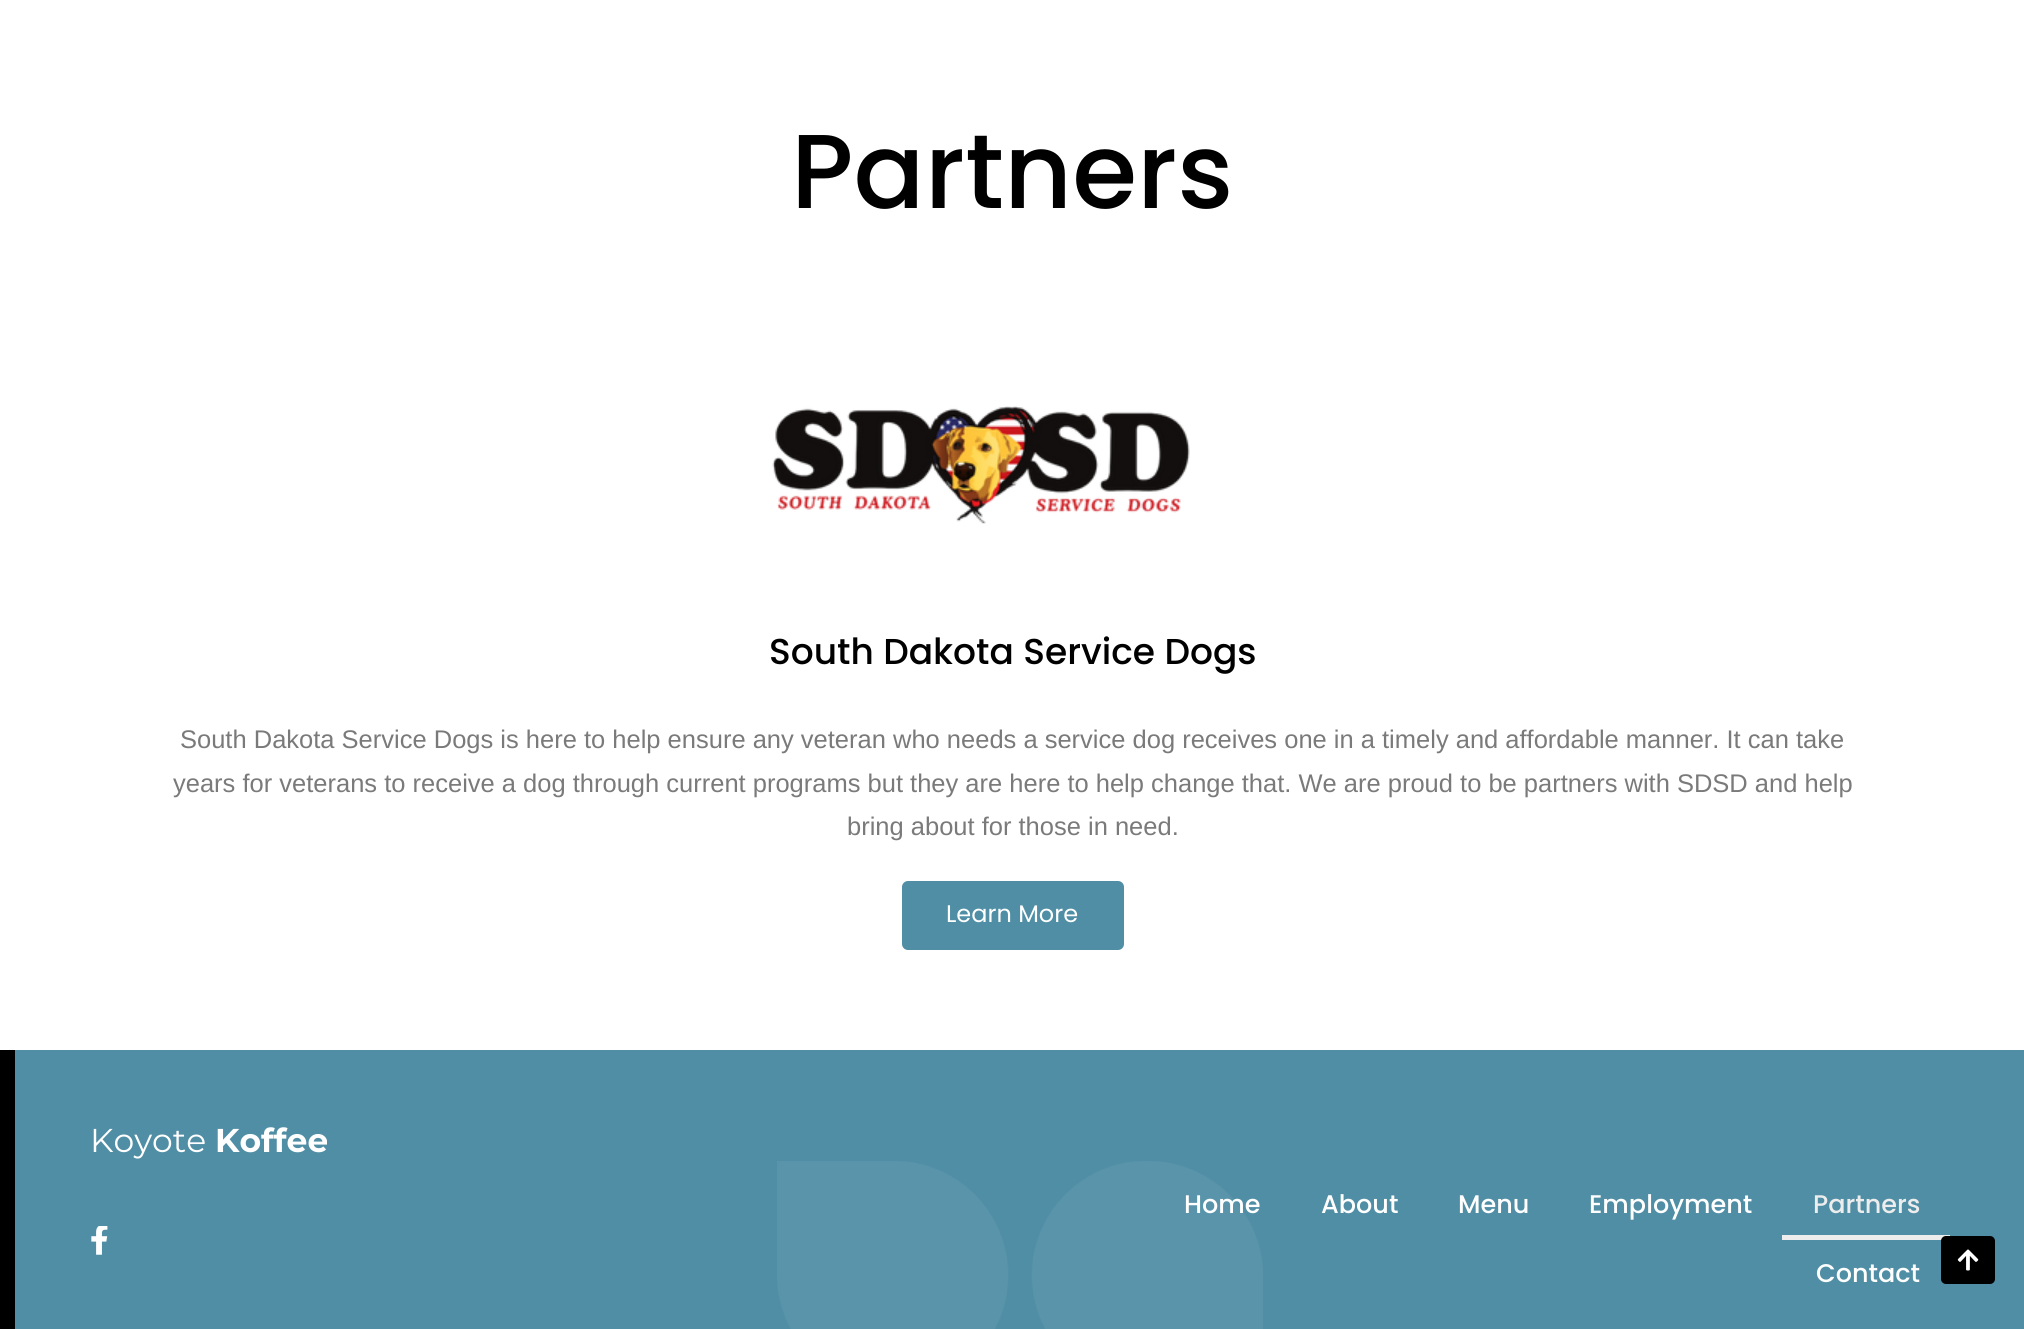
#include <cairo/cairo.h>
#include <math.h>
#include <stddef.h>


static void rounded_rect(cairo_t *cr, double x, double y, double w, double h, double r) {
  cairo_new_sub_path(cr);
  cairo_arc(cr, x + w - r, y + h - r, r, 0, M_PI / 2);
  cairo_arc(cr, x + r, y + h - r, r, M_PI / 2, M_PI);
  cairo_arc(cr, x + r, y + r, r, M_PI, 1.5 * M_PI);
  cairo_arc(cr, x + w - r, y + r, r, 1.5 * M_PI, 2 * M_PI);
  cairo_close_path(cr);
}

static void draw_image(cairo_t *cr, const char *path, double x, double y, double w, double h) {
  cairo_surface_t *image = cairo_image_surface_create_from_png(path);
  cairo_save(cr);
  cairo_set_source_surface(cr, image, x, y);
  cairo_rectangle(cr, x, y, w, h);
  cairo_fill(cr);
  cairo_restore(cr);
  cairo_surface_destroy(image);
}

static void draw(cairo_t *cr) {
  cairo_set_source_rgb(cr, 1, 1, 1);
  cairo_paint(cr);
  draw_image(cr, "images/1.png", 772, 406, 418, 118);
  cairo_set_source_rgb(cr, 80 / 255.0, 142 / 255.0, 165 / 255.0);
  rounded_rect(cr, 902, 881, 222, 69, 6);
  cairo_fill(cr);
  cairo_rectangle(cr, 15, 1050, 2009, 279);
  cairo_fill(cr);
  cairo_set_source_rgb(cr, 0, 0, 0);
  cairo_rectangle(cr, 0, 1050, 15, 279);
  cairo_fill(cr);
  draw_image(cr, "images/2.png", 91, 1226, 17, 29);
  cairo_set_source_rgb(cr, 237 / 255.0, 237 / 255.0, 237 / 255.0);
  cairo_rectangle(cr, 1782, 1235, 168, 5);
  cairo_fill(cr);
  draw_image(cr, "images/3.png", 777, 1161, 486, 168);
  cairo_set_source_rgb(cr, 0, 0, 0);
  rounded_rect(cr, 1941, 1236, 54, 48, 5);
  cairo_fill(cr);
  draw_image(cr, "images/4.png", 1957, 1249, 22, 22);
  cairo_select_font_face(cr, "Poppins Medium", CAIRO_FONT_SLANT_NORMAL, CAIRO_FONT_WEIGHT_NORMAL);
  cairo_set_font_size(cr, 105);
  cairo_move_to(cr, 791, 208);
  cairo_show_text(cr, "Partners");
  cairo_set_font_size(cr, 36);
  cairo_move_to(cr, 769, 664);
  cairo_show_text(cr, "South Dakota Service Dogs");
  cairo_select_font_face(cr, "Liberation Sans", CAIRO_FONT_SLANT_NORMAL, CAIRO_FONT_WEIGHT_NORMAL);
  cairo_set_font_size(cr, 25.5);
  cairo_set_source_rgb(cr, 122 / 255.0, 122 / 255.0, 122 / 255.0);
  cairo_move_to(cr, 180, 748);
  cairo_show_text(cr, "South Dakota Service Dogs is here to help ensure any veteran who needs a service dog receives one in a timely and affordable manner. It can take");
  cairo_move_to(cr, 173, 792);
  cairo_show_text(cr, "years for veterans to receive a dog through current programs but they are here to help change that. We are proud to be partners with SDSD and help");
  cairo_move_to(cr, 847, 835);
  cairo_show_text(cr, "bring about for those in need.");
  cairo_select_font_face(cr, "Poppins", CAIRO_FONT_SLANT_NORMAL, CAIRO_FONT_WEIGHT_NORMAL);
  cairo_set_font_size(cr, 24);
  cairo_set_source_rgb(cr, 1, 1, 1);
  cairo_move_to(cr, 946, 922);
  cairo_show_text(cr, "Learn More");
  cairo_select_font_face(cr, "Montserrat", CAIRO_FONT_SLANT_NORMAL, CAIRO_FONT_WEIGHT_NORMAL);
  cairo_set_font_size(cr, 33);
  cairo_move_to(cr, 90, 1152);
  cairo_show_text(cr, "Koyote");
  cairo_select_font_face(cr, "Montserrat", CAIRO_FONT_SLANT_NORMAL, CAIRO_FONT_WEIGHT_BOLD);
  cairo_move_to(cr, 215, 1152);
  cairo_show_text(cr, "Koffee");
  cairo_select_font_face(cr, "Poppins Medium", CAIRO_FONT_SLANT_NORMAL, CAIRO_FONT_WEIGHT_NORMAL);
  cairo_set_font_size(cr, 25.5);
  cairo_move_to(cr, 1184, 1213);
  cairo_show_text(cr, "Home");
  cairo_move_to(cr, 1321, 1213);
  cairo_show_text(cr, "About");
  cairo_move_to(cr, 1458, 1213);
  cairo_show_text(cr, "Menu");
  cairo_move_to(cr, 1589, 1213);
  cairo_show_text(cr, "Employment");
  cairo_set_source_rgb(cr, 237 / 255.0, 237 / 255.0, 237 / 255.0);
  cairo_move_to(cr, 1813, 1213);
  cairo_show_text(cr, "Partners");
  cairo_set_source_rgb(cr, 1, 1, 1);
  cairo_move_to(cr, 1816, 1282);
  cairo_show_text(cr, "Contact");
}

int main(void) {
  cairo_surface_t *surface = cairo_image_surface_create(CAIRO_FORMAT_RGB24, 2024, 1329);
  cairo_t *cr = cairo_create(surface);
  cairo_font_options_t *options = cairo_font_options_create();
  cairo_font_options_set_hint_metrics(options, CAIRO_HINT_METRICS_OFF);
  cairo_font_options_set_hint_style(options, CAIRO_HINT_STYLE_NONE);
  cairo_set_font_options(cr, options);
  cairo_set_miter_limit(cr, 4);
  draw(cr);
  cairo_surface_write_to_png(surface, "out.png");
  cairo_font_options_destroy(options);
  cairo_destroy(cr);
  cairo_surface_destroy(surface);
  return 0;
}
